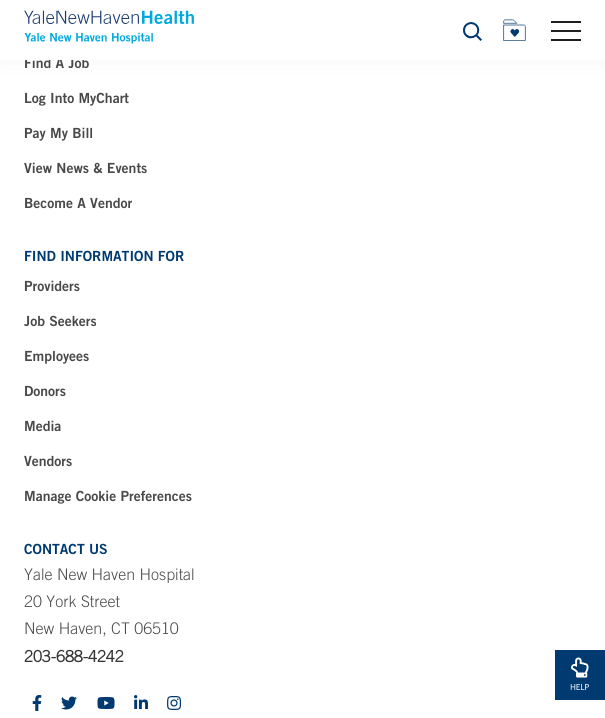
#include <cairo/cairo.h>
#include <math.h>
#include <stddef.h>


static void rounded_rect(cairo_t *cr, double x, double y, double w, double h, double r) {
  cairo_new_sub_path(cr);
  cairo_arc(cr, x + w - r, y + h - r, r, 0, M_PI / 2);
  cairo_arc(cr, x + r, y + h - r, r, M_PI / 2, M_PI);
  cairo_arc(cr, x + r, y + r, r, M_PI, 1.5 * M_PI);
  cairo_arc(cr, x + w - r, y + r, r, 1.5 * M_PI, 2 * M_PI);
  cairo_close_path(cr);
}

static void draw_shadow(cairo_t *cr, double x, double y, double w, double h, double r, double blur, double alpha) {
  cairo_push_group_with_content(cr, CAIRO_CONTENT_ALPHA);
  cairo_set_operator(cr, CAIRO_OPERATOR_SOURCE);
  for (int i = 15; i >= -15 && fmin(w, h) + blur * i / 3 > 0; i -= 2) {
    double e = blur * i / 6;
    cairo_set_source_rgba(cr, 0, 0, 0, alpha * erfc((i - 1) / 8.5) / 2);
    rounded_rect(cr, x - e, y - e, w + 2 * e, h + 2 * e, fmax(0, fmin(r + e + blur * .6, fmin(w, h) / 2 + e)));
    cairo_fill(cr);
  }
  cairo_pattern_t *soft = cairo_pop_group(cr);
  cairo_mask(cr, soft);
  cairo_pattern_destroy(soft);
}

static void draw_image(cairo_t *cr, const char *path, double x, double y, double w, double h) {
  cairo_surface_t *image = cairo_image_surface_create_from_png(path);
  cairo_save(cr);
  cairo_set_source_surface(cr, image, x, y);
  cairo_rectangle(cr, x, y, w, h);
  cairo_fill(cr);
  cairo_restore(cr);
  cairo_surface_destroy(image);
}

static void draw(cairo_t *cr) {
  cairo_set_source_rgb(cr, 1, 1, 1);
  cairo_paint(cr);
  cairo_set_source_rgb(cr, 203 / 255.0, 203 / 255.0, 203 / 255.0);
  draw_shadow(cr, 0, 1, 605, 60, 0, 9, 0.2);
  draw_image(cr, "images/4.png", 32, 695, 10, 16);
  draw_image(cr, "images/5.png", 61, 696, 16, 14);
  draw_image(cr, "images/6.png", 97, 697, 18, 12);
  draw_image(cr, "images/7.png", 134, 695, 14, 14);
  draw_image(cr, "images/8.png", 167, 696, 15, 14);
  cairo_set_source_rgb(cr, 0, 58 / 255.0, 112 / 255.0);
  cairo_rectangle(cr, 555, 650, 50, 50);
  cairo_fill(cr);
  draw_image(cr, "images/9.png", 571, 657, 18, 21);
  cairo_select_font_face(cr, "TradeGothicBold", CAIRO_FONT_SLANT_NORMAL, CAIRO_FONT_WEIGHT_BOLD);
  cairo_set_font_size(cr, 14);
  cairo_set_source_rgb(cr, 73 / 255.0, 73 / 255.0, 73 / 255.0);
  cairo_move_to(cr, 24, 68);
  cairo_show_text(cr, "Find A Job");
  cairo_set_source_rgb(cr, 1, 1, 1);
  cairo_rectangle(cr, 0, 0, 605, 60);
  cairo_fill(cr);
  cairo_set_source_rgb(cr, 30 / 255.0, 30 / 255.0, 30 / 255.0);
  cairo_rectangle(cr, 551, 39, 30, 2);
  cairo_fill(cr);
  cairo_rectangle(cr, 551, 30, 30, 2);
  cairo_fill(cr);
  cairo_rectangle(cr, 551, 21, 30, 2);
  cairo_fill(cr);
  draw_image(cr, "images/2.png", 463, 22, 19, 19);
  draw_image(cr, "images/3.png", 503, 19, 23, 22);
  draw_image(cr, "images/1.png", 24, 10, 170, 34);
  cairo_set_source_rgb(cr, 73 / 255.0, 73 / 255.0, 73 / 255.0);
  cairo_move_to(cr, 24, 103);
  cairo_show_text(cr, "Log Into MyChart");
  cairo_move_to(cr, 24, 138);
  cairo_show_text(cr, "Pay My Bill");
  cairo_move_to(cr, 24, 173);
  cairo_show_text(cr, "View News & Events");
  cairo_move_to(cr, 24, 208);
  cairo_show_text(cr, "Become A Vendor");
  cairo_set_source_rgb(cr, 0, 58 / 255.0, 112 / 255.0);
  cairo_move_to(cr, 24, 261);
  cairo_show_text(cr, "FIND INFORMATION FOR");
  cairo_set_source_rgb(cr, 73 / 255.0, 73 / 255.0, 73 / 255.0);
  cairo_move_to(cr, 24, 291);
  cairo_show_text(cr, "Providers");
  cairo_move_to(cr, 24, 326);
  cairo_show_text(cr, "Job Seekers");
  cairo_move_to(cr, 24, 361);
  cairo_show_text(cr, "Employees");
  cairo_move_to(cr, 24, 396);
  cairo_show_text(cr, "Donors");
  cairo_move_to(cr, 24, 431);
  cairo_show_text(cr, "Media");
  cairo_move_to(cr, 24, 466);
  cairo_show_text(cr, "Vendors");
  cairo_move_to(cr, 24, 501);
  cairo_show_text(cr, "Manage Cookie Preferences");
  cairo_set_source_rgb(cr, 0, 58 / 255.0, 112 / 255.0);
  cairo_move_to(cr, 24, 554);
  cairo_show_text(cr, "CONTACT US");
  cairo_select_font_face(cr, "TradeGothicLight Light", CAIRO_FONT_SLANT_NORMAL, CAIRO_FONT_WEIGHT_NORMAL);
  cairo_set_font_size(cr, 16);
  cairo_set_source_rgb(cr, 73 / 255.0, 73 / 255.0, 73 / 255.0);
  cairo_move_to(cr, 24, 580);
  cairo_show_text(cr, "Yale New Haven Hospital");
  cairo_move_to(cr, 24, 607);
  cairo_show_text(cr, "20 York Street");
  cairo_move_to(cr, 24, 634);
  cairo_show_text(cr, "New Haven, CT 06510");
  cairo_select_font_face(cr, "TradeGothicLight", CAIRO_FONT_SLANT_NORMAL, CAIRO_FONT_WEIGHT_BOLD);
  cairo_set_source_rgb(cr, 54 / 255.0, 54 / 255.0, 54 / 255.0);
  cairo_move_to(cr, 24, 662);
  cairo_show_text(cr, "203-688-4242");
  cairo_set_font_size(cr, 8);
  cairo_set_source_rgb(cr, 1, 1, 1);
  cairo_move_to(cr, 570, 690);
  cairo_show_text(cr, "HELP");
}

int main(void) {
  cairo_surface_t *surface = cairo_image_surface_create(CAIRO_FORMAT_RGB24, 605, 718);
  cairo_t *cr = cairo_create(surface);
  cairo_font_options_t *options = cairo_font_options_create();
  cairo_font_options_set_hint_metrics(options, CAIRO_HINT_METRICS_OFF);
  cairo_font_options_set_hint_style(options, CAIRO_HINT_STYLE_NONE);
  cairo_set_font_options(cr, options);
  cairo_set_miter_limit(cr, 4);
  draw(cr);
  cairo_surface_write_to_png(surface, "out.png");
  cairo_font_options_destroy(options);
  cairo_destroy(cr);
  cairo_surface_destroy(surface);
  return 0;
}
